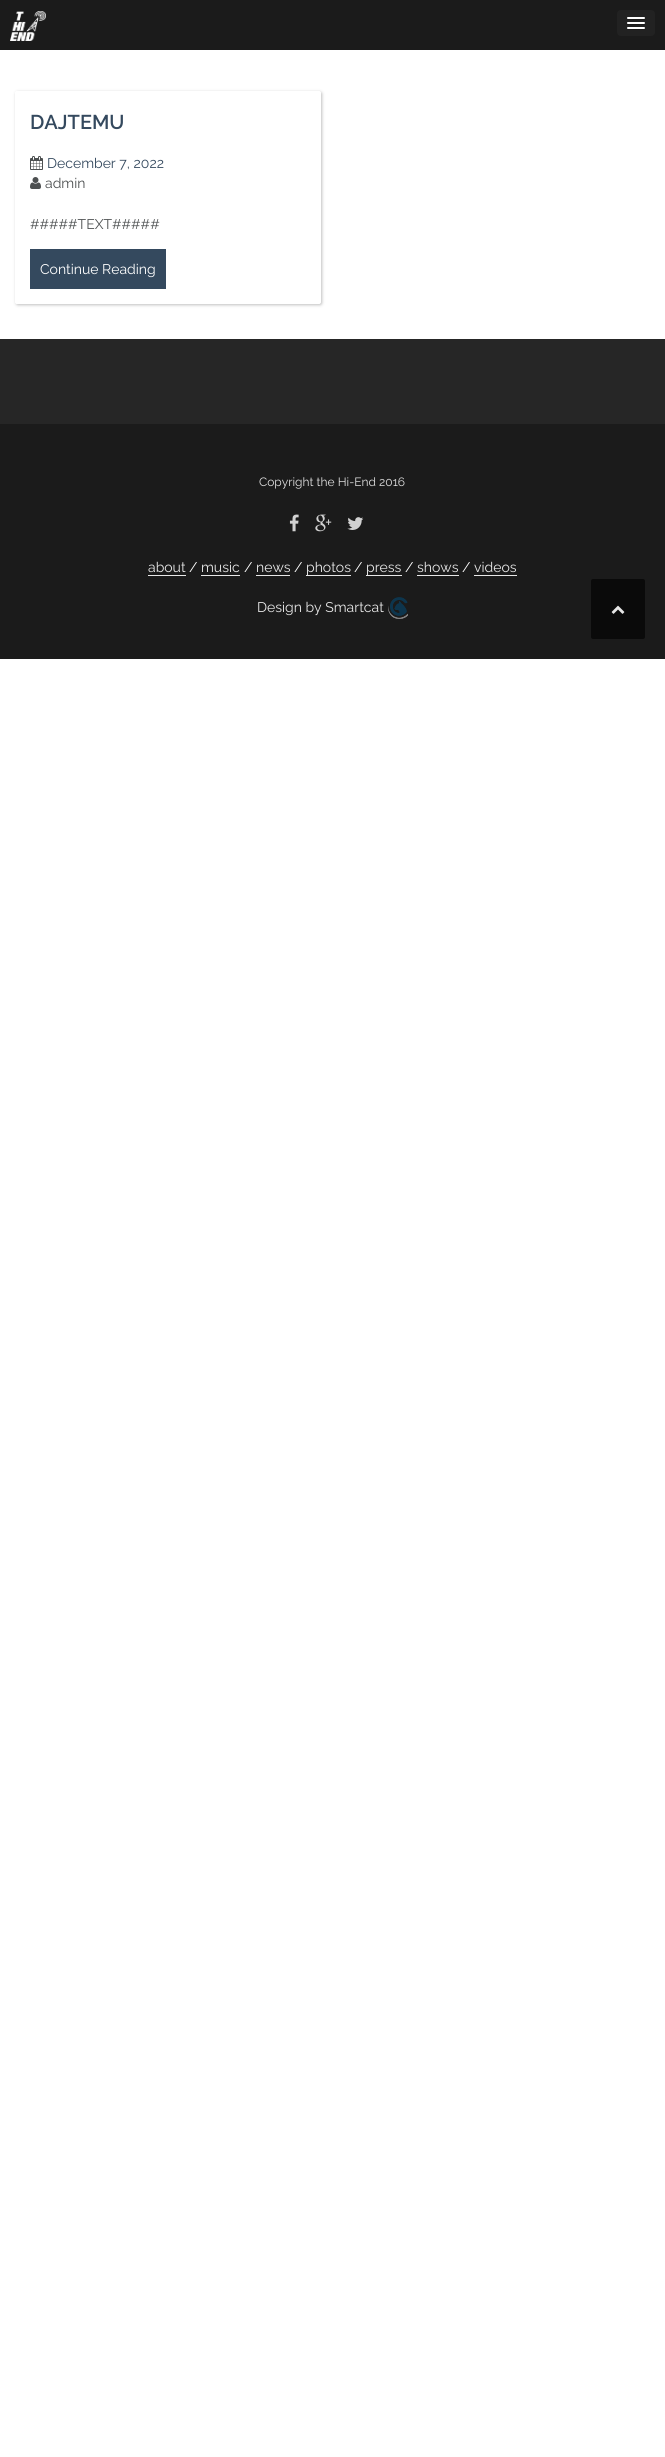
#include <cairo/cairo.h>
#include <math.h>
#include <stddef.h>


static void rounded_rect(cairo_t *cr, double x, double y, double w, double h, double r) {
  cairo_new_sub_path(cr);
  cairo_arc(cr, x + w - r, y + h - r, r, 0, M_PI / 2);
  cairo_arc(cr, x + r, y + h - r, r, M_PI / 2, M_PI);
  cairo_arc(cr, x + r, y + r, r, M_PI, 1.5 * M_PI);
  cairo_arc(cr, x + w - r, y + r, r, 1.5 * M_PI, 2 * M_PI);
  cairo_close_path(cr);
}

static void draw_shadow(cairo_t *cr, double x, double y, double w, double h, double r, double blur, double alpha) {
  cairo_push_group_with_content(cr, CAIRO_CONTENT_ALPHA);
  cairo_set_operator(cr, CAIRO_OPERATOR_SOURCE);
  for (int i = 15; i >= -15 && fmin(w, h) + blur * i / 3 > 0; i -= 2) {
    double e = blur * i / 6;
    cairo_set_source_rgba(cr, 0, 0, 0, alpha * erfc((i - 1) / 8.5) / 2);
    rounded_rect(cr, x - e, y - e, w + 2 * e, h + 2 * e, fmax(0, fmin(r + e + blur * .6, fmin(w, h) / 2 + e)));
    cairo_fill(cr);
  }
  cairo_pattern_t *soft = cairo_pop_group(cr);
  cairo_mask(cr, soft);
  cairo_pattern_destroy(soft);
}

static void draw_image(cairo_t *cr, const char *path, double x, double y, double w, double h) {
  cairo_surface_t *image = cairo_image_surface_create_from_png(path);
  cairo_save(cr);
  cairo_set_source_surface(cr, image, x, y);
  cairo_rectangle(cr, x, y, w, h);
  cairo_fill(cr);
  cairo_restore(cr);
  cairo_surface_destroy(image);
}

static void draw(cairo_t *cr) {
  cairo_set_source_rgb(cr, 1, 1, 1);
  cairo_paint(cr);
  cairo_set_source_rgb(cr, 27 / 255.0, 27 / 255.0, 27 / 255.0);
  cairo_rectangle(cr, 0, 0, 665, 50);
  cairo_fill(cr);
  draw_image(cr, "images/1.png", 10, 11, 36, 30);
  cairo_set_source_rgb(cr, 34 / 255.0, 34 / 255.0, 34 / 255.0);
  rounded_rect(cr, 617, 10, 38, 26, 4);
  cairo_fill(cr);
  cairo_set_source_rgb(cr, 26 / 255.0, 26 / 255.0, 26 / 255.0);
  cairo_new_path(cr);
  cairo_move_to(cr, 627, 18.5);
  cairo_curve_to(cr, 626, 20.5, 630.5, 20, 630.5, 20);
  cairo_line_to(cr, 641.5, 20);
  cairo_curve_to(cr, 641.5, 20, 646, 20.5, 645, 18.5);
  cairo_curve_to(cr, 644, 19.5, 637.5, 19, 636, 19);
  cairo_curve_to(cr, 634.5, 19, 628, 19.5, 627, 18.5);
  cairo_close_path(cr);
  cairo_fill(cr);
  cairo_set_source_rgb(cr, 1, 1, 1);
  rounded_rect(cr, 627, 17, 18, 2, 1);
  cairo_fill(cr);
  cairo_set_source_rgb(cr, 26 / 255.0, 26 / 255.0, 26 / 255.0);
  cairo_new_path(cr);
  cairo_move_to(cr, 627, 23.5);
  cairo_curve_to(cr, 626, 25.5, 630.5, 25, 630.5, 25);
  cairo_line_to(cr, 641.5, 25);
  cairo_curve_to(cr, 641.5, 25, 646, 25.5, 645, 23.5);
  cairo_curve_to(cr, 644, 24.5, 637.5, 24, 636, 24);
  cairo_curve_to(cr, 634.5, 24, 628, 24.5, 627, 23.5);
  cairo_close_path(cr);
  cairo_fill(cr);
  cairo_set_source_rgb(cr, 1, 1, 1);
  rounded_rect(cr, 627, 22, 18, 2, 1);
  cairo_fill(cr);
  cairo_set_source_rgb(cr, 26 / 255.0, 26 / 255.0, 26 / 255.0);
  cairo_new_path(cr);
  cairo_move_to(cr, 627, 28.5);
  cairo_curve_to(cr, 626, 30.5, 630.5, 30, 630.5, 30);
  cairo_line_to(cr, 641.5, 30);
  cairo_curve_to(cr, 641.5, 30, 646, 30.5, 645, 28.5);
  cairo_curve_to(cr, 644, 29.5, 637.5, 29, 636, 29);
  cairo_curve_to(cr, 634.5, 29, 628, 29.5, 627, 28.5);
  cairo_close_path(cr);
  cairo_fill(cr);
  cairo_set_source_rgb(cr, 1, 1, 1);
  rounded_rect(cr, 627, 27, 18, 2, 1);
  cairo_fill(cr);
  cairo_save(cr);
  cairo_set_fill_rule(cr, CAIRO_FILL_RULE_EVEN_ODD);
  cairo_new_path(cr);
  cairo_move_to(cr, 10, 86);
  cairo_line_to(cr, 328, 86);
  cairo_line_to(cr, 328, 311);
  cairo_line_to(cr, 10, 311);
  cairo_close_path(cr);
  cairo_move_to(cr, 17, 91);
  cairo_line_to(cr, 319, 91);
  cairo_curve_to(cr, 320, 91, 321, 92, 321, 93);
  cairo_line_to(cr, 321, 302);
  cairo_curve_to(cr, 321, 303, 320, 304, 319, 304);
  cairo_line_to(cr, 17, 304);
  cairo_curve_to(cr, 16, 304, 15, 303, 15, 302);
  cairo_line_to(cr, 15, 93);
  cairo_curve_to(cr, 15, 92, 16, 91, 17, 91);
  cairo_close_path(cr);
  cairo_clip(cr);
  cairo_set_source_rgb(cr, 191 / 255.0, 191 / 255.0, 191 / 255.0);
  draw_shadow(cr, 16, 92, 306, 213, 2, 1.5, 1);
  cairo_restore(cr);
  draw_image(cr, "images/2.png", 30, 156, 13, 14);
  draw_image(cr, "images/3.png", 30, 177, 11, 12);
  cairo_set_source_rgb(cr, 52 / 255.0, 73 / 255.0, 94 / 255.0);
  cairo_rectangle(cr, 30, 249, 136, 40);
  cairo_fill(cr);
  cairo_set_source_rgb(cr, 38 / 255.0, 38 / 255.0, 38 / 255.0);
  cairo_rectangle(cr, 0, 339, 665, 85);
  cairo_fill(cr);
  cairo_set_source_rgb(cr, 27 / 255.0, 27 / 255.0, 27 / 255.0);
  cairo_rectangle(cr, 0, 424, 665, 235);
  cairo_fill(cr);
  draw_image(cr, "images/4.png", 289, 514, 10, 18);
  draw_image(cr, "images/5.png", 315, 514, 17, 18);
  draw_image(cr, "images/6.png", 347, 517, 17, 13);
  cairo_set_source_rgb(cr, 232 / 255.0, 232 / 255.0, 232 / 255.0);
  cairo_rectangle(cr, 148, 575, 38, 1);
  cairo_fill(cr);
  cairo_rectangle(cr, 201, 575, 39, 1);
  cairo_fill(cr);
  cairo_rectangle(cr, 256, 575, 34, 1);
  cairo_fill(cr);
  cairo_rectangle(cr, 306, 575, 45, 1);
  cairo_fill(cr);
  cairo_rectangle(cr, 366, 575, 36, 1);
  cairo_fill(cr);
  cairo_rectangle(cr, 417, 575, 42, 1);
  cairo_fill(cr);
  cairo_rectangle(cr, 474, 575, 43, 1);
  cairo_fill(cr);
  draw_image(cr, "images/7.png", 388, 597, 20, 22);
  cairo_set_source_rgb(cr, 10 / 255.0, 10 / 255.0, 10 / 255.0);
  rounded_rect(cr, 591, 579, 54, 60, 2);
  cairo_fill(cr);
  draw_image(cr, "images/8.png", 611, 605, 14, 9);
  cairo_select_font_face(cr, "Raleway SemiBold", CAIRO_FONT_SLANT_NORMAL, CAIRO_FONT_WEIGHT_NORMAL);
  cairo_set_font_size(cr, 20);
  cairo_set_source_rgb(cr, 52 / 255.0, 73 / 255.0, 94 / 255.0);
  cairo_move_to(cr, 30, 129);
  cairo_show_text(cr, "DAJTEMU");
  cairo_select_font_face(cr, "Raleway", CAIRO_FONT_SLANT_NORMAL, CAIRO_FONT_WEIGHT_NORMAL);
  cairo_set_font_size(cr, 14);
  cairo_move_to(cr, 47, 168);
  cairo_show_text(cr, "December 7, 2022");
  cairo_set_source_rgb(cr, 77 / 255.0, 80 / 255.0, 81 / 255.0);
  cairo_move_to(cr, 45, 188);
  cairo_show_text(cr, "admin");
  cairo_move_to(cr, 30, 229);
  cairo_show_text(cr, "#####TEXT#####");
  cairo_set_source_rgb(cr, 1, 1, 1);
  cairo_move_to(cr, 40, 274);
  cairo_show_text(cr, "Continue Reading");
  cairo_set_font_size(cr, 12);
  cairo_set_source_rgb(cr, 225 / 255.0, 225 / 255.0, 225 / 255.0);
  cairo_move_to(cr, 259, 486);
  cairo_show_text(cr, "Copyright the Hi-End 2016");
  cairo_set_font_size(cr, 14);
  cairo_set_source_rgb(cr, 232 / 255.0, 232 / 255.0, 232 / 255.0);
  cairo_move_to(cr, 148, 572);
  cairo_show_text(cr, "about");
  cairo_set_source_rgb(cr, 1, 1, 1);
  cairo_move_to(cr, 189, 572);
  cairo_show_text(cr, "/");
  cairo_set_source_rgb(cr, 232 / 255.0, 232 / 255.0, 232 / 255.0);
  cairo_move_to(cr, 201, 572);
  cairo_show_text(cr, "music");
  cairo_set_source_rgb(cr, 1, 1, 1);
  cairo_move_to(cr, 244, 572);
  cairo_show_text(cr, "/");
  cairo_set_source_rgb(cr, 232 / 255.0, 232 / 255.0, 232 / 255.0);
  cairo_move_to(cr, 256, 572);
  cairo_show_text(cr, "news");
  cairo_set_source_rgb(cr, 1, 1, 1);
  cairo_move_to(cr, 294, 572);
  cairo_show_text(cr, "/");
  cairo_set_source_rgb(cr, 232 / 255.0, 232 / 255.0, 232 / 255.0);
  cairo_move_to(cr, 306, 572);
  cairo_show_text(cr, "photos");
  cairo_set_source_rgb(cr, 1, 1, 1);
  cairo_move_to(cr, 354, 572);
  cairo_show_text(cr, "/");
  cairo_set_source_rgb(cr, 232 / 255.0, 232 / 255.0, 232 / 255.0);
  cairo_move_to(cr, 366, 572);
  cairo_show_text(cr, "press");
  cairo_set_source_rgb(cr, 1, 1, 1);
  cairo_move_to(cr, 405, 572);
  cairo_show_text(cr, "/");
  cairo_set_source_rgb(cr, 232 / 255.0, 232 / 255.0, 232 / 255.0);
  cairo_move_to(cr, 417, 572);
  cairo_show_text(cr, "shows");
  cairo_set_source_rgb(cr, 1, 1, 1);
  cairo_move_to(cr, 462, 572);
  cairo_show_text(cr, "/");
  cairo_set_source_rgb(cr, 232 / 255.0, 232 / 255.0, 232 / 255.0);
  cairo_move_to(cr, 474, 572);
  cairo_show_text(cr, "videos");
  cairo_move_to(cr, 257, 612);
  cairo_show_text(cr, "Design by Smartcat");
}

int main(void) {
  cairo_surface_t *surface = cairo_image_surface_create(CAIRO_FORMAT_RGB24, 665, 2457);
  cairo_t *cr = cairo_create(surface);
  cairo_font_options_t *options = cairo_font_options_create();
  cairo_font_options_set_hint_metrics(options, CAIRO_HINT_METRICS_OFF);
  cairo_font_options_set_hint_style(options, CAIRO_HINT_STYLE_NONE);
  cairo_set_font_options(cr, options);
  cairo_set_miter_limit(cr, 4);
  draw(cr);
  cairo_surface_write_to_png(surface, "out.png");
  cairo_font_options_destroy(options);
  cairo_destroy(cr);
  cairo_surface_destroy(surface);
  return 0;
}
